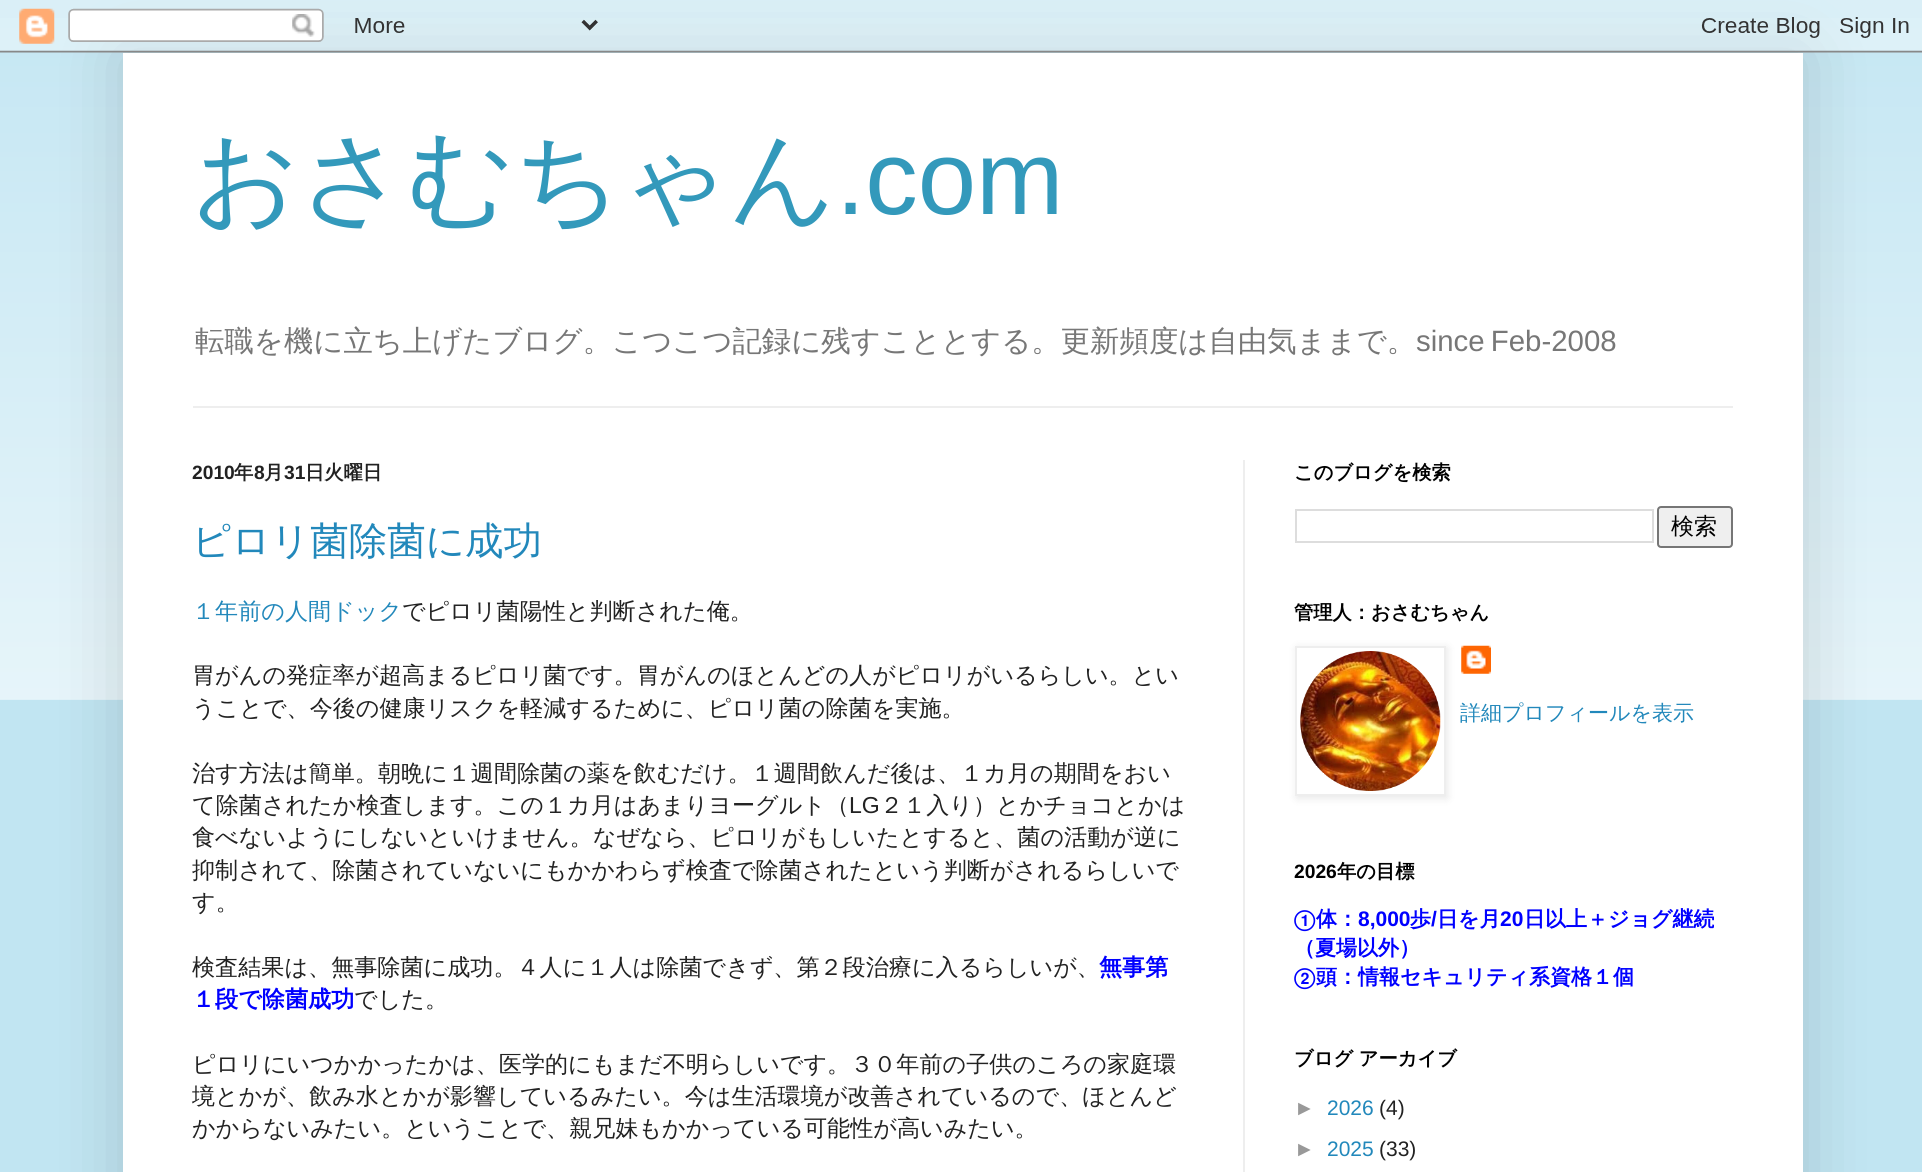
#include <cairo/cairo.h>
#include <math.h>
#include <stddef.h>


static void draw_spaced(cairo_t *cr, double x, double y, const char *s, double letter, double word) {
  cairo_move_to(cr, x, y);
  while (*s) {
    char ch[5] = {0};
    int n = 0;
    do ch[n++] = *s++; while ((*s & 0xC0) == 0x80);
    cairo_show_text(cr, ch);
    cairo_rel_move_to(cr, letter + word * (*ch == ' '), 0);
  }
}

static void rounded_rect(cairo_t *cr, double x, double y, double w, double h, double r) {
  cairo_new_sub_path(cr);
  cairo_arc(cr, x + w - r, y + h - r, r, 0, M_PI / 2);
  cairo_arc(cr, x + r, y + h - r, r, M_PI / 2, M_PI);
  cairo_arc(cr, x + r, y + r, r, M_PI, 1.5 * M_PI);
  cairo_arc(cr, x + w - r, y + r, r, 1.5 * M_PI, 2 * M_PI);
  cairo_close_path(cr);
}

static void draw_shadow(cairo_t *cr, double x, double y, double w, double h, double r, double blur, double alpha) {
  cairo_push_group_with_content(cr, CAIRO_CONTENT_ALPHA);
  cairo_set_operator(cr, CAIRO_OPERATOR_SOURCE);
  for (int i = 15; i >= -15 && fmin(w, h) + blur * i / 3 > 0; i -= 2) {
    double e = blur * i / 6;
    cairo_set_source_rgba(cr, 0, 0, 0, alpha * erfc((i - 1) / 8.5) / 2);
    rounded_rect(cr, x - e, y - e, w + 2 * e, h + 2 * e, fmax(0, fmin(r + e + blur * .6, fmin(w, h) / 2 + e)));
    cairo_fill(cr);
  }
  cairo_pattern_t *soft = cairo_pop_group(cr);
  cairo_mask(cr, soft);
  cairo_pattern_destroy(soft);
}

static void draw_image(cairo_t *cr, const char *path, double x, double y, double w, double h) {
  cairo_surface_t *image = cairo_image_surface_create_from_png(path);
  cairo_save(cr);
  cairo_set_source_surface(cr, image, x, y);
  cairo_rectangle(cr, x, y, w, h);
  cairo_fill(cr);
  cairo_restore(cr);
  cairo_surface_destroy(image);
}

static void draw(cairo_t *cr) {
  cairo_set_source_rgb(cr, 193 / 255.0, 229 / 255.0, 242 / 255.0);
  cairo_paint(cr);
  draw_image(cr, "images/2.png", 0, 18, 1922, 682);
  cairo_set_source_rgb(cr, 0, 0, 0);
  draw_shadow(cr, 123, 53, 1680, 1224, 0, 35, 0.15);
  draw_image(cr, "images/1.png", 0, 0, 1922, 53);
  cairo_set_source_rgb(cr, 1, 1, 1);
  cairo_rectangle(cr, 123, 53, 1680, 1119);
  cairo_fill(cr);
  cairo_set_source_rgb(cr, 238 / 255.0, 238 / 255.0, 238 / 255.0);
  cairo_rectangle(cr, 193, 406, 1540, 2);
  cairo_fill(cr);
  cairo_rectangle(cr, 1243, 460, 2, 712);
  cairo_fill(cr);
  cairo_rectangle(cr, 1296, 510, 357, 32);
  cairo_set_source_rgb(cr, 221 / 255.0, 221 / 255.0, 221 / 255.0);
  cairo_stroke(cr);
  cairo_set_source_rgb(cr, 239 / 255.0, 239 / 255.0, 239 / 255.0);
  rounded_rect(cr, 1658, 507, 74, 40, 3);
  cairo_fill_preserve(cr);
  cairo_set_source_rgb(cr, 118 / 255.0, 118 / 255.0, 118 / 255.0);
  cairo_stroke(cr);
  draw_image(cr, "images/4.png", 1461, 645, 30, 29);
  cairo_set_source_rgb(cr, 0, 0, 0);
  draw_shadow(cr, 1297, 648, 150, 150, 0, 4.5, 0.1);
  cairo_set_source_rgb(cr, 1, 1, 1);
  cairo_rectangle(cr, 1296, 647, 149, 148);
  cairo_fill_preserve(cr);
  cairo_set_source_rgb(cr, 238 / 255.0, 238 / 255.0, 238 / 255.0);
  cairo_stroke(cr);
  draw_image(cr, "images/3.png", 1300, 651, 141, 140);
  cairo_select_font_face(cr, "WenQuanYi Zen Hei Medium", CAIRO_FONT_SLANT_NORMAL, CAIRO_FONT_WEIGHT_NORMAL);
  cairo_set_font_size(cr, 105);
  cairo_set_source_rgb(cr, 51 / 255.0, 153 / 255.0, 187 / 255.0);
  cairo_move_to(cr, 192, 214);
  cairo_show_text(cr, "おさむちゃん");
  cairo_select_font_face(cr, "Liberation Sans", CAIRO_FONT_SLANT_NORMAL, CAIRO_FONT_WEIGHT_NORMAL);
  cairo_move_to(cr, 836, 214);
  cairo_show_text(cr, ".com");
  cairo_select_font_face(cr, "WenQuanYi Zen Hei Medium", CAIRO_FONT_SLANT_NORMAL, CAIRO_FONT_WEIGHT_NORMAL);
  cairo_set_font_size(cr, 29.4);
  cairo_set_source_rgb(cr, 119 / 255.0, 119 / 255.0, 119 / 255.0);
  cairo_move_to(cr, 195, 351);
  cairo_show_text(cr, "転職を機に立ち上げたブログ。こつこつ記録に残すこととする。更新頻度は自由気ままで。");
  cairo_select_font_face(cr, "Liberation Sans", CAIRO_FONT_SLANT_NORMAL, CAIRO_FONT_WEIGHT_NORMAL);
  draw_spaced(cr, 1416, 351, "since Feb-2008", 0, -2);
  cairo_select_font_face(cr, "Liberation Sans", CAIRO_FONT_SLANT_NORMAL, CAIRO_FONT_WEIGHT_BOLD);
  cairo_set_font_size(cr, 19.25);
  cairo_set_source_rgb(cr, 34 / 255.0, 34 / 255.0, 34 / 255.0);
  cairo_move_to(cr, 192, 479);
  cairo_show_text(cr, "2010");
  cairo_select_font_face(cr, "WenQuanYi Zen Hei", CAIRO_FONT_SLANT_NORMAL, CAIRO_FONT_WEIGHT_BOLD);
  cairo_move_to(cr, 234, 479);
  cairo_show_text(cr, "年");
  cairo_select_font_face(cr, "Liberation Sans", CAIRO_FONT_SLANT_NORMAL, CAIRO_FONT_WEIGHT_BOLD);
  cairo_move_to(cr, 254, 479);
  cairo_show_text(cr, "8");
  cairo_select_font_face(cr, "WenQuanYi Zen Hei", CAIRO_FONT_SLANT_NORMAL, CAIRO_FONT_WEIGHT_BOLD);
  cairo_move_to(cr, 264, 479);
  cairo_show_text(cr, "月");
  cairo_select_font_face(cr, "Liberation Sans", CAIRO_FONT_SLANT_NORMAL, CAIRO_FONT_WEIGHT_BOLD);
  cairo_move_to(cr, 284, 479);
  cairo_show_text(cr, "31");
  cairo_select_font_face(cr, "WenQuanYi Zen Hei", CAIRO_FONT_SLANT_NORMAL, CAIRO_FONT_WEIGHT_BOLD);
  cairo_move_to(cr, 305, 479);
  cairo_show_text(cr, "日火曜日");
  cairo_select_font_face(cr, "WenQuanYi Zen Hei Medium", CAIRO_FONT_SLANT_NORMAL, CAIRO_FONT_WEIGHT_NORMAL);
  cairo_set_font_size(cr, 38.5);
  cairo_set_source_rgb(cr, 34 / 255.0, 136 / 255.0, 187 / 255.0);
  cairo_move_to(cr, 192, 554);
  cairo_show_text(cr, "ピロリ菌除菌に成功");
  cairo_set_font_size(cr, 23.1);
  cairo_move_to(cr, 192, 619);
  cairo_show_text(cr, "１年前の人間ドック");
  cairo_set_source_rgb(cr, 34 / 255.0, 34 / 255.0, 34 / 255.0);
  cairo_move_to(cr, 402, 619);
  cairo_show_text(cr, "でピロリ菌陽性と判断された俺。");
  cairo_move_to(cr, 192, 683);
  cairo_show_text(cr, "胃がんの発症率が超高まるピロリ菌です。胃がんのほとんどの人がピロリがいるらしい。とい");
  cairo_move_to(cr, 192, 716);
  cairo_show_text(cr, "うことで、今後の健康リスクを軽減するために、ピロリ菌の除菌を実施。");
  cairo_move_to(cr, 192, 781);
  cairo_show_text(cr, "治す方法は簡単。朝晩に１週間除菌の薬を飲むだけ。１週間飲んだ後は、１カ月の期間をおい");
  cairo_move_to(cr, 192, 813);
  cairo_show_text(cr, "て除菌されたか検査します。この１カ月はあまりヨーグルト（");
  cairo_select_font_face(cr, "Liberation Sans", CAIRO_FONT_SLANT_NORMAL, CAIRO_FONT_WEIGHT_NORMAL);
  cairo_move_to(cr, 849, 813);
  cairo_show_text(cr, "LG");
  cairo_select_font_face(cr, "WenQuanYi Zen Hei Medium", CAIRO_FONT_SLANT_NORMAL, CAIRO_FONT_WEIGHT_NORMAL);
  cairo_move_to(cr, 880, 813);
  cairo_show_text(cr, "２１入り）とかチョコとかは");
  cairo_move_to(cr, 192, 845);
  cairo_show_text(cr, "食べないようにしないといけません。なぜなら、ピロリがもしいたとすると、菌の活動が逆に");
  cairo_move_to(cr, 192, 878);
  cairo_show_text(cr, "抑制されて、除菌されていないにもかかわらず検査で除菌されたという判断がされるらしいで");
  cairo_move_to(cr, 192, 910);
  cairo_show_text(cr, "す。");
  cairo_move_to(cr, 192, 975);
  cairo_show_text(cr, "検査結果は、無事除菌に成功。４人に１人は除菌できず、第２段治療に入るらしいが、");
  cairo_select_font_face(cr, "WenQuanYi Zen Hei", CAIRO_FONT_SLANT_NORMAL, CAIRO_FONT_WEIGHT_BOLD);
  cairo_set_source_rgb(cr, 0, 0, 1);
  cairo_move_to(cr, 1099, 975);
  cairo_show_text(cr, "無事第");
  cairo_move_to(cr, 192, 1007);
  cairo_show_text(cr, "１段で除菌成功");
  cairo_select_font_face(cr, "WenQuanYi Zen Hei Medium", CAIRO_FONT_SLANT_NORMAL, CAIRO_FONT_WEIGHT_NORMAL);
  cairo_set_source_rgb(cr, 34 / 255.0, 34 / 255.0, 34 / 255.0);
  cairo_move_to(cr, 354, 1007);
  cairo_show_text(cr, "でした。");
  cairo_move_to(cr, 192, 1072);
  cairo_show_text(cr, "ピロリにいつかかったかは、医学的にもまだ不明らしいです。３０年前の子供のころの家庭環");
  cairo_move_to(cr, 192, 1104);
  cairo_show_text(cr, "境とかが、飲み水とかが影響しているみたい。今は生活環境が改善されているので、ほとんど");
  cairo_move_to(cr, 192, 1136);
  cairo_show_text(cr, "かからないみたい。ということで、親兄妹もかかっている可能性が高いみたい。");
  cairo_select_font_face(cr, "WenQuanYi Zen Hei", CAIRO_FONT_SLANT_NORMAL, CAIRO_FONT_WEIGHT_BOLD);
  cairo_set_font_size(cr, 19.25);
  cairo_set_source_rgb(cr, 0, 0, 0);
  cairo_move_to(cr, 1294, 479);
  cairo_show_text(cr, "このブログを検索");
  cairo_select_font_face(cr, "WenQuanYi Zen Hei Medium", CAIRO_FONT_SLANT_NORMAL, CAIRO_FONT_WEIGHT_NORMAL);
  cairo_set_font_size(cr, 23);
  cairo_move_to(cr, 1671, 534);
  cairo_show_text(cr, "検索");
  cairo_select_font_face(cr, "WenQuanYi Zen Hei", CAIRO_FONT_SLANT_NORMAL, CAIRO_FONT_WEIGHT_BOLD);
  cairo_set_font_size(cr, 19.25);
  cairo_move_to(cr, 1294, 619);
  cairo_show_text(cr, "管理人：おさむちゃん");
  cairo_select_font_face(cr, "WenQuanYi Zen Hei Medium", CAIRO_FONT_SLANT_NORMAL, CAIRO_FONT_WEIGHT_NORMAL);
  cairo_set_font_size(cr, 21);
  cairo_set_source_rgb(cr, 34 / 255.0, 136 / 255.0, 187 / 255.0);
  cairo_move_to(cr, 1460, 720);
  cairo_show_text(cr, "詳細プロフィールを表示");
  cairo_select_font_face(cr, "Liberation Sans", CAIRO_FONT_SLANT_NORMAL, CAIRO_FONT_WEIGHT_BOLD);
  cairo_set_font_size(cr, 19.25);
  cairo_set_source_rgb(cr, 0, 0, 0);
  cairo_move_to(cr, 1294, 878);
  cairo_show_text(cr, "2026");
  cairo_select_font_face(cr, "WenQuanYi Zen Hei", CAIRO_FONT_SLANT_NORMAL, CAIRO_FONT_WEIGHT_BOLD);
  cairo_move_to(cr, 1337, 878);
  cairo_show_text(cr, "年の目標");
  cairo_select_font_face(cr, "FreeSans SemiBold", CAIRO_FONT_SLANT_NORMAL, CAIRO_FONT_WEIGHT_NORMAL);
  cairo_set_font_size(cr, 21);
  cairo_set_source_rgb(cr, 0, 0, 1);
  cairo_move_to(cr, 1294, 926);
  cairo_show_text(cr, "①");
  cairo_select_font_face(cr, "WenQuanYi Zen Hei", CAIRO_FONT_SLANT_NORMAL, CAIRO_FONT_WEIGHT_BOLD);
  cairo_move_to(cr, 1316, 926);
  cairo_show_text(cr, "体：");
  cairo_select_font_face(cr, "Liberation Sans", CAIRO_FONT_SLANT_NORMAL, CAIRO_FONT_WEIGHT_BOLD);
  cairo_move_to(cr, 1358, 926);
  cairo_show_text(cr, "8,000");
  cairo_select_font_face(cr, "WenQuanYi Zen Hei", CAIRO_FONT_SLANT_NORMAL, CAIRO_FONT_WEIGHT_BOLD);
  cairo_move_to(cr, 1410, 926);
  cairo_show_text(cr, "歩");
  cairo_select_font_face(cr, "Liberation Sans", CAIRO_FONT_SLANT_NORMAL, CAIRO_FONT_WEIGHT_BOLD);
  cairo_move_to(cr, 1431, 926);
  cairo_show_text(cr, "/");
  cairo_select_font_face(cr, "WenQuanYi Zen Hei", CAIRO_FONT_SLANT_NORMAL, CAIRO_FONT_WEIGHT_BOLD);
  cairo_move_to(cr, 1437, 926);
  cairo_show_text(cr, "日を月");
  cairo_select_font_face(cr, "Liberation Sans", CAIRO_FONT_SLANT_NORMAL, CAIRO_FONT_WEIGHT_BOLD);
  cairo_move_to(cr, 1500, 926);
  cairo_show_text(cr, "20");
  cairo_select_font_face(cr, "WenQuanYi Zen Hei", CAIRO_FONT_SLANT_NORMAL, CAIRO_FONT_WEIGHT_BOLD);
  cairo_move_to(cr, 1524, 926);
  cairo_show_text(cr, "日以上＋ジョグ継続");
  cairo_move_to(cr, 1294, 955);
  cairo_show_text(cr, "（夏場以外）");
  cairo_select_font_face(cr, "FreeSans SemiBold", CAIRO_FONT_SLANT_NORMAL, CAIRO_FONT_WEIGHT_NORMAL);
  cairo_move_to(cr, 1294, 984);
  cairo_show_text(cr, "②");
  cairo_select_font_face(cr, "WenQuanYi Zen Hei", CAIRO_FONT_SLANT_NORMAL, CAIRO_FONT_WEIGHT_BOLD);
  cairo_move_to(cr, 1316, 984);
  cairo_show_text(cr, "頭：情報セキュリティ系資格１個");
  cairo_set_font_size(cr, 19.25);
  cairo_set_source_rgb(cr, 0, 0, 0);
  cairo_move_to(cr, 1294, 1065);
  cairo_show_text(cr, "ブログ アーカイブ");
  cairo_select_font_face(cr, "Liberation Sans", CAIRO_FONT_SLANT_NORMAL, CAIRO_FONT_WEIGHT_NORMAL);
  cairo_set_font_size(cr, 21);
  cairo_set_source_rgb(cr, 153 / 255.0, 153 / 255.0, 153 / 255.0);
  cairo_move_to(cr, 1294, 1115);
  cairo_show_text(cr, "►");
  cairo_set_source_rgb(cr, 34 / 255.0, 136 / 255.0, 187 / 255.0);
  cairo_move_to(cr, 1327, 1115);
  cairo_show_text(cr, "2026");
  cairo_set_source_rgb(cr, 34 / 255.0, 34 / 255.0, 34 / 255.0);
  cairo_move_to(cr, 1379, 1115);
  cairo_show_text(cr, "(4)");
  cairo_set_source_rgb(cr, 153 / 255.0, 153 / 255.0, 153 / 255.0);
  cairo_move_to(cr, 1294, 1156);
  cairo_show_text(cr, "►");
  cairo_set_source_rgb(cr, 34 / 255.0, 136 / 255.0, 187 / 255.0);
  cairo_move_to(cr, 1327, 1156);
  cairo_show_text(cr, "2025");
  cairo_set_source_rgb(cr, 34 / 255.0, 34 / 255.0, 34 / 255.0);
  cairo_move_to(cr, 1379, 1156);
  cairo_show_text(cr, "(33)");
}

int main(void) {
  cairo_surface_t *surface = cairo_image_surface_create(CAIRO_FORMAT_RGB24, 1922, 1172);
  cairo_t *cr = cairo_create(surface);
  cairo_font_options_t *options = cairo_font_options_create();
  cairo_font_options_set_hint_metrics(options, CAIRO_HINT_METRICS_OFF);
  cairo_font_options_set_hint_style(options, CAIRO_HINT_STYLE_NONE);
  cairo_set_font_options(cr, options);
  cairo_set_miter_limit(cr, 4);
  draw(cr);
  cairo_surface_write_to_png(surface, "out.png");
  cairo_font_options_destroy(options);
  cairo_destroy(cr);
  cairo_surface_destroy(surface);
  return 0;
}
